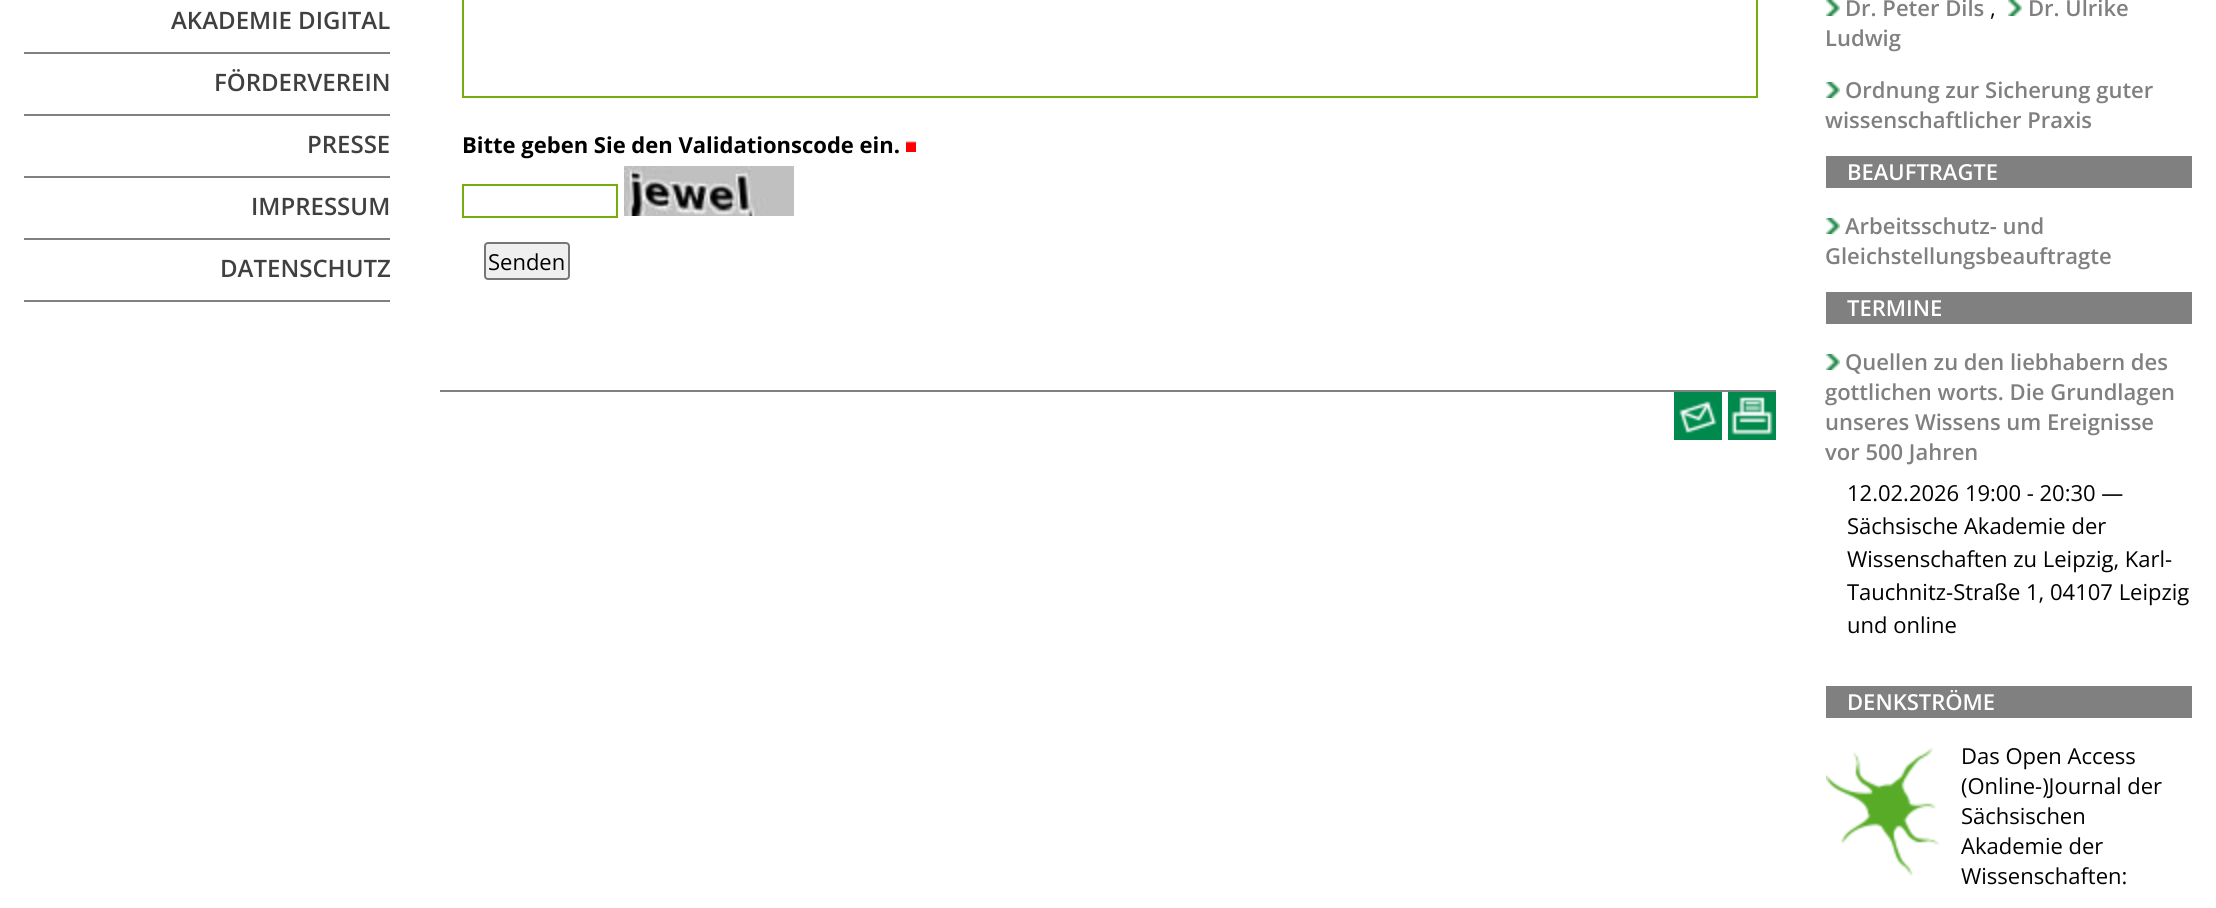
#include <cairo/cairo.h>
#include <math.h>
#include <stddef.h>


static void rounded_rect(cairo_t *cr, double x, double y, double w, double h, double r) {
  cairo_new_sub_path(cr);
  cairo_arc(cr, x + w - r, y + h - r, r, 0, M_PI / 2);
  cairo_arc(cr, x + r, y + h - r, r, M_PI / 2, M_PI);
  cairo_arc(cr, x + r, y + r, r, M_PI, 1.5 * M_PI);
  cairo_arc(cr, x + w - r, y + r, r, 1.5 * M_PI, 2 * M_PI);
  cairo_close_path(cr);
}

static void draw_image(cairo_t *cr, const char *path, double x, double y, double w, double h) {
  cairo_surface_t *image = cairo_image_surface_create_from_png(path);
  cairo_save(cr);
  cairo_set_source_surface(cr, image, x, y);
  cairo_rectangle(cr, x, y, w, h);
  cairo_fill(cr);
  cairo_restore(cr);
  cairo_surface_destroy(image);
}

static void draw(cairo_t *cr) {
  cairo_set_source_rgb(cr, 1, 1, 1);
  cairo_paint(cr);
  cairo_set_source_rgb(cr, 128 / 255.0, 128 / 255.0, 128 / 255.0);
  cairo_rectangle(cr, 24, 52, 366, 2);
  cairo_fill(cr);
  cairo_rectangle(cr, 24, 114, 366, 2);
  cairo_fill(cr);
  cairo_rectangle(cr, 24, 176, 366, 2);
  cairo_fill(cr);
  cairo_rectangle(cr, 24, 238, 366, 2);
  cairo_fill(cr);
  cairo_rectangle(cr, 24, 300, 366, 2);
  cairo_fill(cr);
  cairo_rectangle(cr, 463, -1, 1294, 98);
  cairo_set_source_rgb(cr, 117 / 255.0, 173 / 255.0, 10 / 255.0);
  cairo_stroke(cr);
  draw_image(cr, "images/1.png", 906, 141, 10, 11);
  cairo_rectangle(cr, 463, 185, 154, 32);
  cairo_stroke(cr);
  draw_image(cr, "images/2.png", 624, 166, 170, 50);
  cairo_set_source_rgb(cr, 239 / 255.0, 239 / 255.0, 239 / 255.0);
  rounded_rect(cr, 485, 243, 84, 36, 3);
  cairo_fill_preserve(cr);
  cairo_set_source_rgb(cr, 118 / 255.0, 118 / 255.0, 118 / 255.0);
  cairo_stroke(cr);
  cairo_set_source_rgb(cr, 128 / 255.0, 128 / 255.0, 128 / 255.0);
  cairo_rectangle(cr, 440, 390, 1336, 2);
  cairo_fill(cr);
  draw_image(cr, "images/3.png", 1674, 392, 48, 48);
  draw_image(cr, "images/4.png", 1728, 392, 48, 48);
  draw_image(cr, "images/5.png", 1826, 0, 14, 16);
  draw_image(cr, "images/5.png", 2008, 0, 14, 16);
  draw_image(cr, "images/5.png", 1826, 82, 14, 16);
  cairo_rectangle(cr, 1826, 156, 366, 32);
  cairo_fill(cr);
  draw_image(cr, "images/5.png", 1826, 218, 14, 16);
  cairo_rectangle(cr, 1826, 292, 366, 32);
  cairo_fill(cr);
  draw_image(cr, "images/5.png", 1826, 354, 14, 16);
  cairo_rectangle(cr, 1826, 686, 366, 32);
  cairo_fill(cr);
  draw_image(cr, "images/6.png", 1826, 748, 114, 128);
  cairo_select_font_face(cr, "Open Sans SemiBold", CAIRO_FONT_SLANT_NORMAL, CAIRO_FONT_WEIGHT_NORMAL);
  cairo_set_font_size(cr, 24);
  cairo_set_source_rgb(cr, 64 / 255.0, 64 / 255.0, 64 / 255.0);
  cairo_move_to(cr, 171, 29);
  cairo_show_text(cr, "AKADEMIE DIGITAL");
  cairo_move_to(cr, 214, 91);
  cairo_show_text(cr, "FÖRDERVEREIN");
  cairo_move_to(cr, 307, 153);
  cairo_show_text(cr, "PRESSE");
  cairo_move_to(cr, 251, 215);
  cairo_show_text(cr, "IMPRESSUM");
  cairo_move_to(cr, 220, 277);
  cairo_show_text(cr, "DATENSCHUTZ");
  cairo_select_font_face(cr, "Open Sans", CAIRO_FONT_SLANT_NORMAL, CAIRO_FONT_WEIGHT_BOLD);
  cairo_set_font_size(cr, 22);
  cairo_set_source_rgb(cr, 0, 0, 0);
  cairo_move_to(cr, 462, 153);
  cairo_show_text(cr, "Bitte geben Sie den Validationscode ein.");
  cairo_select_font_face(cr, "Open Sans", CAIRO_FONT_SLANT_NORMAL, CAIRO_FONT_WEIGHT_NORMAL);
  cairo_move_to(cr, 488, 270);
  cairo_show_text(cr, "Senden");
  cairo_select_font_face(cr, "Open Sans SemiBold", CAIRO_FONT_SLANT_NORMAL, CAIRO_FONT_WEIGHT_NORMAL);
  cairo_set_source_rgb(cr, 128 / 255.0, 128 / 255.0, 128 / 255.0);
  cairo_move_to(cr, 1845, 16);
  cairo_show_text(cr, "Dr. Peter Dils");
  cairo_select_font_face(cr, "Open Sans", CAIRO_FONT_SLANT_NORMAL, CAIRO_FONT_WEIGHT_NORMAL);
  cairo_set_source_rgb(cr, 0, 0, 0);
  cairo_move_to(cr, 1990, 16);
  cairo_show_text(cr, ",");
  cairo_select_font_face(cr, "Open Sans SemiBold", CAIRO_FONT_SLANT_NORMAL, CAIRO_FONT_WEIGHT_NORMAL);
  cairo_set_source_rgb(cr, 128 / 255.0, 128 / 255.0, 128 / 255.0);
  cairo_move_to(cr, 2028, 16);
  cairo_show_text(cr, "Dr. Ulrike");
  cairo_move_to(cr, 1825, 46);
  cairo_show_text(cr, "Ludwig");
  cairo_move_to(cr, 1845, 98);
  cairo_show_text(cr, "Ordnung zur Sicherung guter");
  cairo_move_to(cr, 1825, 128);
  cairo_show_text(cr, "wissenschaftlicher Praxis");
  cairo_set_source_rgb(cr, 1, 1, 1);
  cairo_move_to(cr, 1847, 180);
  cairo_show_text(cr, "BEAUFTRAGTE");
  cairo_set_source_rgb(cr, 128 / 255.0, 128 / 255.0, 128 / 255.0);
  cairo_move_to(cr, 1845, 234);
  cairo_show_text(cr, "Arbeitsschutz- und");
  cairo_move_to(cr, 1825, 264);
  cairo_show_text(cr, "Gleichstellungsbeauftragte");
  cairo_set_source_rgb(cr, 1, 1, 1);
  cairo_move_to(cr, 1847, 316);
  cairo_show_text(cr, "TERMINE");
  cairo_set_source_rgb(cr, 128 / 255.0, 128 / 255.0, 128 / 255.0);
  cairo_move_to(cr, 1845, 370);
  cairo_show_text(cr, "Quellen zu den liebhabern des");
  cairo_move_to(cr, 1825, 400);
  cairo_show_text(cr, "gottlichen worts. Die Grundlagen");
  cairo_move_to(cr, 1825, 430);
  cairo_show_text(cr, "unseres Wissens um Ereignisse");
  cairo_move_to(cr, 1825, 460);
  cairo_show_text(cr, "vor 500 Jahren");
  cairo_select_font_face(cr, "Open Sans", CAIRO_FONT_SLANT_NORMAL, CAIRO_FONT_WEIGHT_NORMAL);
  cairo_set_source_rgb(cr, 0, 0, 0);
  cairo_move_to(cr, 1847, 501);
  cairo_show_text(cr, "12.02.2026 19:00 - 20:30 —");
  cairo_move_to(cr, 1847, 534);
  cairo_show_text(cr, "Sächsische Akademie der");
  cairo_move_to(cr, 1847, 567);
  cairo_show_text(cr, "Wissenschaften zu Leipzig, Karl-");
  cairo_move_to(cr, 1847, 600);
  cairo_show_text(cr, "Tauchnitz-Straße 1, 04107 Leipzig");
  cairo_move_to(cr, 1847, 633);
  cairo_show_text(cr, "und online");
  cairo_select_font_face(cr, "Open Sans SemiBold", CAIRO_FONT_SLANT_NORMAL, CAIRO_FONT_WEIGHT_NORMAL);
  cairo_set_source_rgb(cr, 1, 1, 1);
  cairo_move_to(cr, 1847, 710);
  cairo_show_text(cr, "DENKSTRÖME");
  cairo_select_font_face(cr, "Open Sans", CAIRO_FONT_SLANT_NORMAL, CAIRO_FONT_WEIGHT_NORMAL);
  cairo_set_source_rgb(cr, 0, 0, 0);
  cairo_move_to(cr, 1961, 764);
  cairo_show_text(cr, "Das Open Access");
  cairo_move_to(cr, 1961, 794);
  cairo_show_text(cr, "(Online-)Journal der");
  cairo_move_to(cr, 1961, 824);
  cairo_show_text(cr, "Sächsischen");
  cairo_move_to(cr, 1961, 854);
  cairo_show_text(cr, "Akademie der");
  cairo_move_to(cr, 1961, 884);
  cairo_show_text(cr, "Wissenschaften:");
}

int main(void) {
  cairo_surface_t *surface = cairo_image_surface_create(CAIRO_FORMAT_RGB24, 2216, 908);
  cairo_t *cr = cairo_create(surface);
  cairo_font_options_t *options = cairo_font_options_create();
  cairo_font_options_set_hint_metrics(options, CAIRO_HINT_METRICS_OFF);
  cairo_font_options_set_hint_style(options, CAIRO_HINT_STYLE_NONE);
  cairo_set_font_options(cr, options);
  cairo_set_miter_limit(cr, 4);
  draw(cr);
  cairo_surface_write_to_png(surface, "out.png");
  cairo_font_options_destroy(options);
  cairo_destroy(cr);
  cairo_surface_destroy(surface);
  return 0;
}
